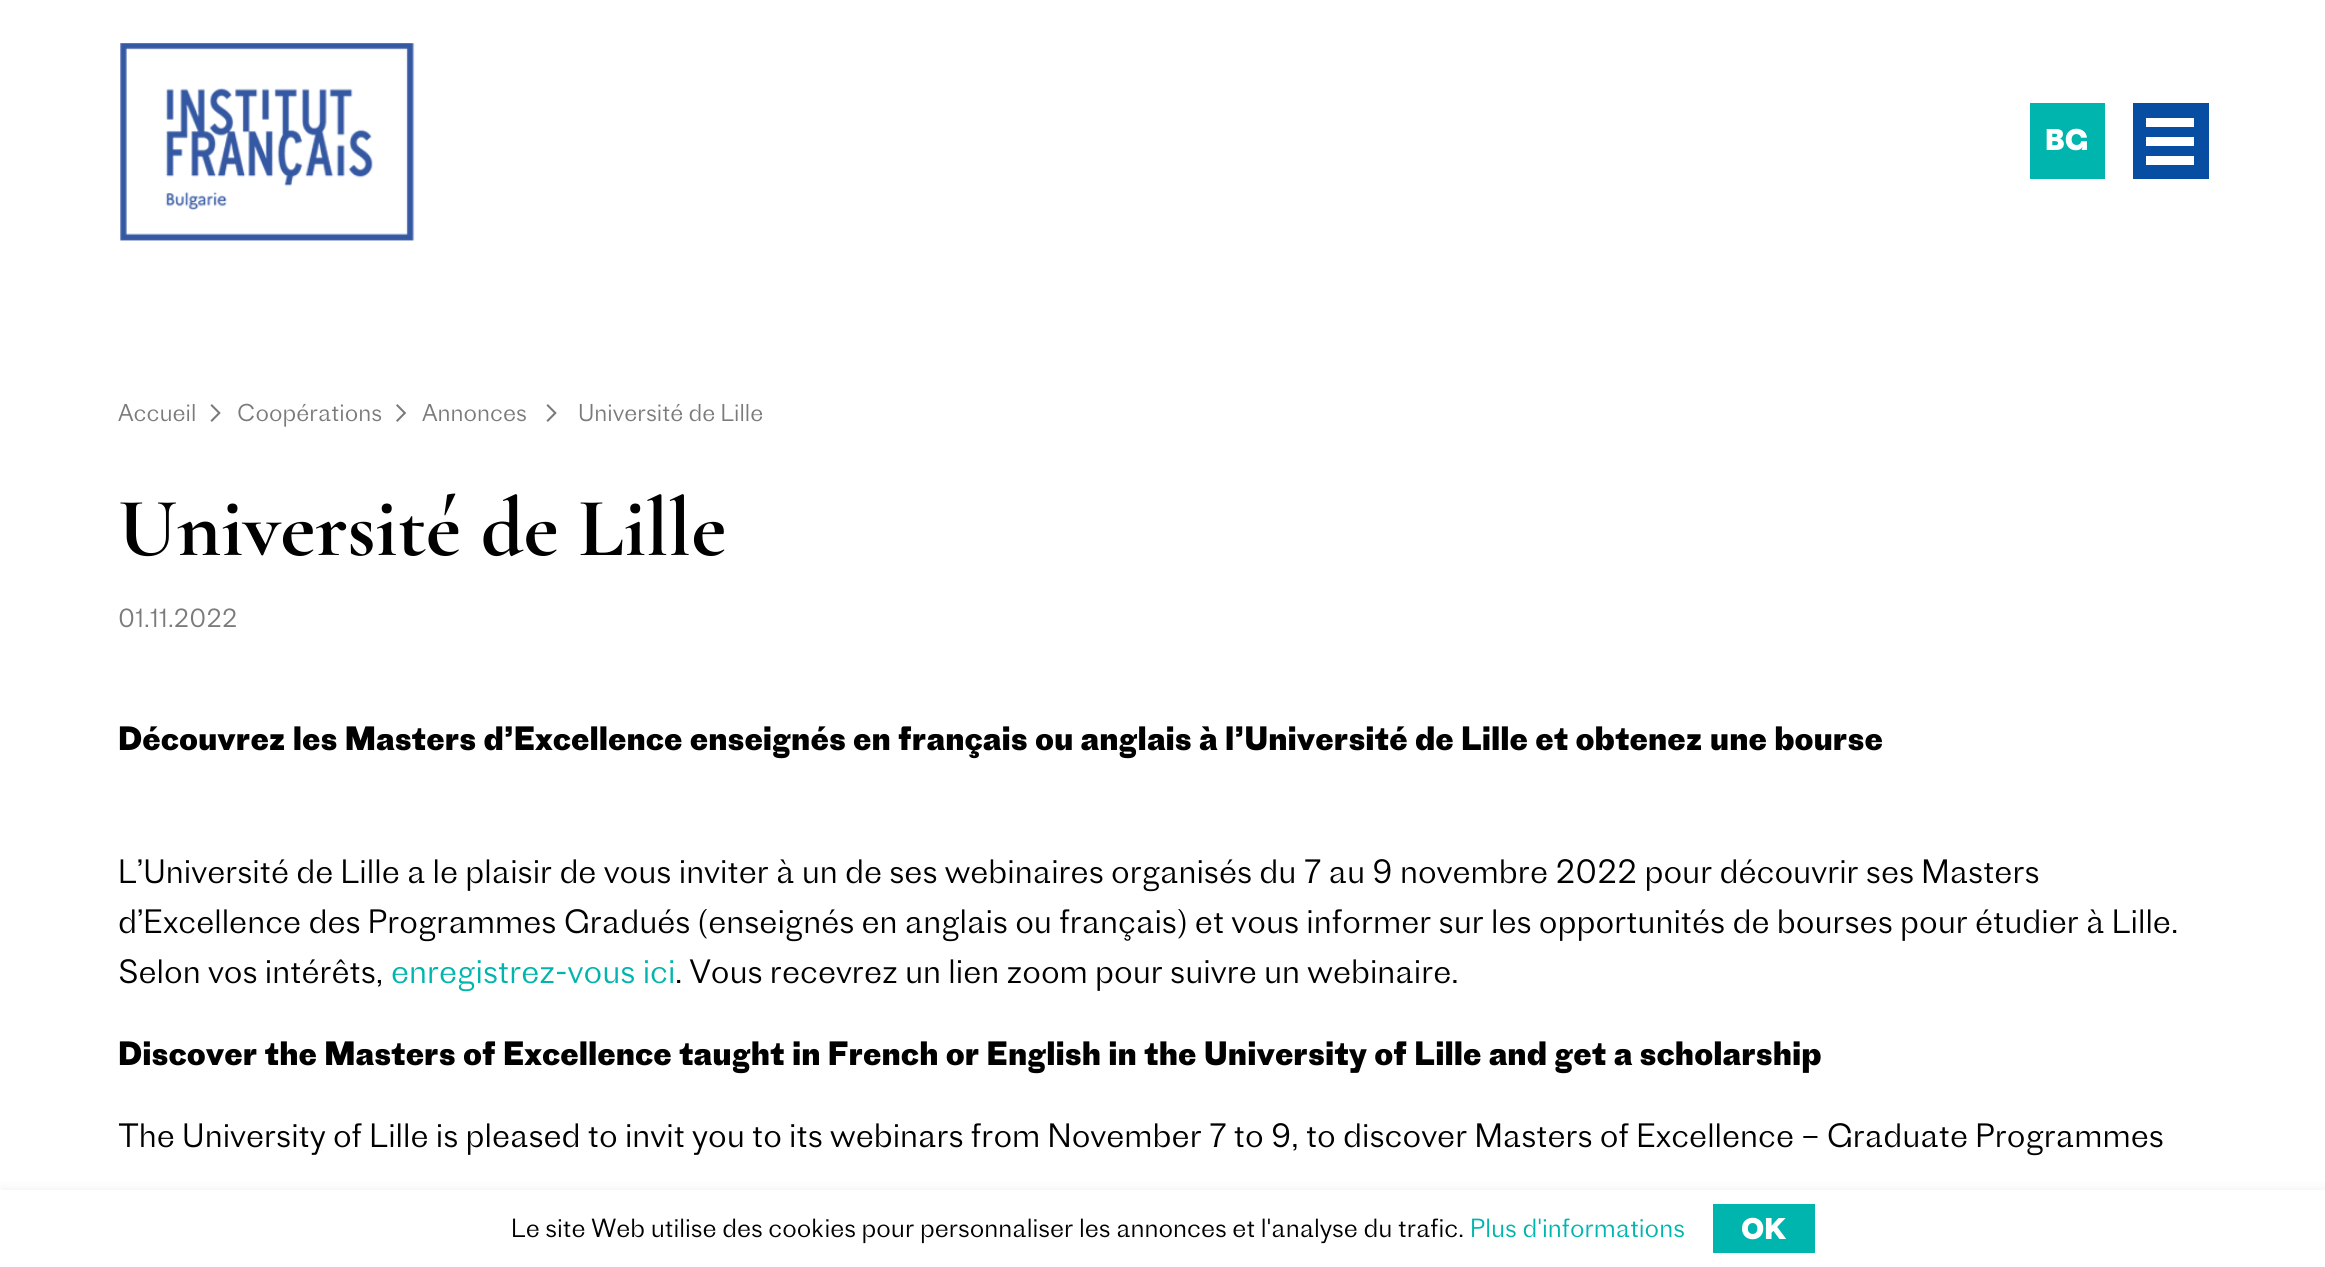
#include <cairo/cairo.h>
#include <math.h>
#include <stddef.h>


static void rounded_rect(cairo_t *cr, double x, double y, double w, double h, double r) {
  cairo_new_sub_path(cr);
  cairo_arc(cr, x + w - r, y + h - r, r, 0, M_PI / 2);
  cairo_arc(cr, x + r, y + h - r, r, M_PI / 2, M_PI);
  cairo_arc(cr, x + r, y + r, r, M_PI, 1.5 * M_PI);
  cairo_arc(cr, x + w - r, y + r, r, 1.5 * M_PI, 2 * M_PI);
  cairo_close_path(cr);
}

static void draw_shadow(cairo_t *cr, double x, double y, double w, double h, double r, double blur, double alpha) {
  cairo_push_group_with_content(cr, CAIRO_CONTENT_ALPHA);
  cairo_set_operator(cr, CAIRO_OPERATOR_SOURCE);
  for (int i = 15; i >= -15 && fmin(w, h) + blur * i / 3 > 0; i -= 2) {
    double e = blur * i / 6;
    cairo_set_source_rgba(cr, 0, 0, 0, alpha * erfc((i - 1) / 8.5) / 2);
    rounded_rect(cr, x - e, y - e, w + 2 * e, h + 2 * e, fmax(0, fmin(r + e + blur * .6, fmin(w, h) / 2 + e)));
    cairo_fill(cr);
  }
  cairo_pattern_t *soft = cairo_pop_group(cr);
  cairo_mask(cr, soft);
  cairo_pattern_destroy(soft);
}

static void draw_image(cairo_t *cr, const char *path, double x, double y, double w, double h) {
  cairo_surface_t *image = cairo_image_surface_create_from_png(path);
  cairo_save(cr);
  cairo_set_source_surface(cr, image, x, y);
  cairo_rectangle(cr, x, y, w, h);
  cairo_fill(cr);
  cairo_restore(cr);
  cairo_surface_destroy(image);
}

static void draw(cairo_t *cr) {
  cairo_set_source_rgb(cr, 1, 1, 1);
  cairo_paint(cr);
  draw_image(cr, "images/1.png", 120, 43, 295, 198);
  cairo_set_source_rgb(cr, 0, 181 / 255.0, 173 / 255.0);
  cairo_rectangle(cr, 2030, 103, 75, 76);
  cairo_fill(cr);
  cairo_set_source_rgb(cr, 7 / 255.0, 78 / 255.0, 162 / 255.0);
  cairo_rectangle(cr, 2133, 103, 76, 76);
  cairo_fill(cr);
  cairo_set_source_rgb(cr, 1, 1, 1);
  cairo_rectangle(cr, 2146, 118, 48, 9);
  cairo_fill(cr);
  cairo_rectangle(cr, 2146, 137, 48, 9);
  cairo_fill(cr);
  cairo_rectangle(cr, 2146, 156, 48, 9);
  cairo_fill(cr);
  draw_image(cr, "images/2.png", 210, 404, 11, 18);
  draw_image(cr, "images/3.png", 396, 404, 10, 18);
  draw_image(cr, "images/2.png", 546, 404, 11, 18);
  cairo_set_source_rgb(cr, 0, 0, 0);
  draw_shadow(cr, 2, 1188, 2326, 77, 0, 4.5, 0.05);
  cairo_set_source_rgb(cr, 1, 1, 1);
  cairo_rectangle(cr, 0, 1190, 2325, 77);
  cairo_fill(cr);
  cairo_set_source_rgb(cr, 0, 181 / 255.0, 173 / 255.0);
  cairo_rectangle(cr, 1713, 1204, 102, 49);
  cairo_fill(cr);
  cairo_select_font_face(cr, "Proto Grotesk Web", CAIRO_FONT_SLANT_NORMAL, CAIRO_FONT_WEIGHT_BOLD);
  cairo_set_font_size(cr, 28);
  cairo_set_source_rgb(cr, 1, 1, 1);
  cairo_move_to(cr, 2045, 150);
  cairo_show_text(cr, "BG");
  cairo_select_font_face(cr, "Proto Grotesk Web Light", CAIRO_FONT_SLANT_NORMAL, CAIRO_FONT_WEIGHT_NORMAL);
  cairo_set_font_size(cr, 22.75);
  cairo_set_source_rgb(cr, 123 / 255.0, 123 / 255.0, 123 / 255.0);
  cairo_move_to(cr, 118, 421);
  cairo_show_text(cr, "Accueil");
  cairo_move_to(cr, 237, 421);
  cairo_show_text(cr, "Coopérations");
  cairo_move_to(cr, 422, 421);
  cairo_show_text(cr, "Annonces");
  cairo_move_to(cr, 578, 421);
  cairo_show_text(cr, "Université de Lille");
  cairo_select_font_face(cr, "Cormorant Garamond", CAIRO_FONT_SLANT_NORMAL, CAIRO_FONT_WEIGHT_BOLD);
  cairo_set_font_size(cr, 84);
  cairo_set_source_rgb(cr, 0, 0, 0);
  cairo_move_to(cr, 118, 555);
  cairo_show_text(cr, "Université de Lille");
  cairo_select_font_face(cr, "Proto Grotesk Web Light", CAIRO_FONT_SLANT_NORMAL, CAIRO_FONT_WEIGHT_NORMAL);
  cairo_set_font_size(cr, 24.5);
  cairo_set_source_rgb(cr, 123 / 255.0, 123 / 255.0, 123 / 255.0);
  cairo_move_to(cr, 118, 627);
  cairo_show_text(cr, "01.11.2022");
  cairo_select_font_face(cr, "Proto Grotesk Web", CAIRO_FONT_SLANT_NORMAL, CAIRO_FONT_WEIGHT_BOLD);
  cairo_set_font_size(cr, 31.5);
  cairo_set_source_rgb(cr, 0, 0, 0);
  cairo_move_to(cr, 118, 750);
  cairo_show_text(cr, "Découvrez les Masters d’Excellence enseignés en français ou anglais à l’Université de Lille et obtenez une bourse");
  cairo_select_font_face(cr, "Proto Grotesk Web Light", CAIRO_FONT_SLANT_NORMAL, CAIRO_FONT_WEIGHT_NORMAL);
  cairo_move_to(cr, 118, 883);
  cairo_show_text(cr, "L’Université de Lille a le plaisir de vous inviter à un de ses webinaires organisés du 7 au 9 novembre 2022 pour découvrir ses Masters");
  cairo_move_to(cr, 118, 933);
  cairo_show_text(cr, "d’Excellence des Programmes Gradués (enseignés en anglais ou français) et vous informer sur les opportunités de bourses pour étudier à Lille.");
  cairo_move_to(cr, 118, 983);
  cairo_show_text(cr, "Selon vos intérêts,");
  cairo_set_source_rgb(cr, 0, 181 / 255.0, 173 / 255.0);
  cairo_move_to(cr, 391, 983);
  cairo_show_text(cr, "enregistrez-vous ici");
  cairo_set_source_rgb(cr, 0, 0, 0);
  cairo_move_to(cr, 675, 983);
  cairo_show_text(cr, ". Vous recevrez un lien zoom pour suivre un webinaire.");
  cairo_select_font_face(cr, "Proto Grotesk Web", CAIRO_FONT_SLANT_NORMAL, CAIRO_FONT_WEIGHT_BOLD);
  cairo_move_to(cr, 118, 1065);
  cairo_show_text(cr, "Discover the Masters of Excellence taught in French or English in the University of Lille and get a scholarship");
  cairo_save(cr);
  cairo_rectangle(cr, 119, 716, 2090, 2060);
  cairo_clip(cr);
  cairo_select_font_face(cr, "Proto Grotesk Web Light", CAIRO_FONT_SLANT_NORMAL, CAIRO_FONT_WEIGHT_NORMAL);
  cairo_move_to(cr, 118, 1147);
  cairo_show_text(cr, "The University of Lille is pleased to invit you to its webinars from November 7 to 9, to discover Masters of Excellence – Graduate Programmes");
  cairo_restore(cr);
  cairo_select_font_face(cr, "Proto Grotesk Web Light", CAIRO_FONT_SLANT_NORMAL, CAIRO_FONT_WEIGHT_NORMAL);
  cairo_set_font_size(cr, 24.5);
  cairo_move_to(cr, 511, 1237);
  cairo_show_text(cr, "Le site Web utilise des cookies pour personnaliser les annonces et l'analyse du trafic.");
  cairo_set_source_rgb(cr, 0, 181 / 255.0, 173 / 255.0);
  cairo_move_to(cr, 1470, 1237);
  cairo_show_text(cr, "Plus d'informations");
  cairo_select_font_face(cr, "Proto Grotesk Web", CAIRO_FONT_SLANT_NORMAL, CAIRO_FONT_WEIGHT_BOLD);
  cairo_set_font_size(cr, 28);
  cairo_set_source_rgb(cr, 1, 1, 1);
  cairo_move_to(cr, 1741, 1239);
  cairo_show_text(cr, "OK");
}

int main(void) {
  cairo_surface_t *surface = cairo_image_surface_create(CAIRO_FORMAT_RGB24, 2325, 1267);
  cairo_t *cr = cairo_create(surface);
  cairo_font_options_t *options = cairo_font_options_create();
  cairo_font_options_set_hint_metrics(options, CAIRO_HINT_METRICS_OFF);
  cairo_font_options_set_hint_style(options, CAIRO_HINT_STYLE_NONE);
  cairo_set_font_options(cr, options);
  cairo_set_miter_limit(cr, 4);
  draw(cr);
  cairo_surface_write_to_png(surface, "out.png");
  cairo_font_options_destroy(options);
  cairo_destroy(cr);
  cairo_surface_destroy(surface);
  return 0;
}
